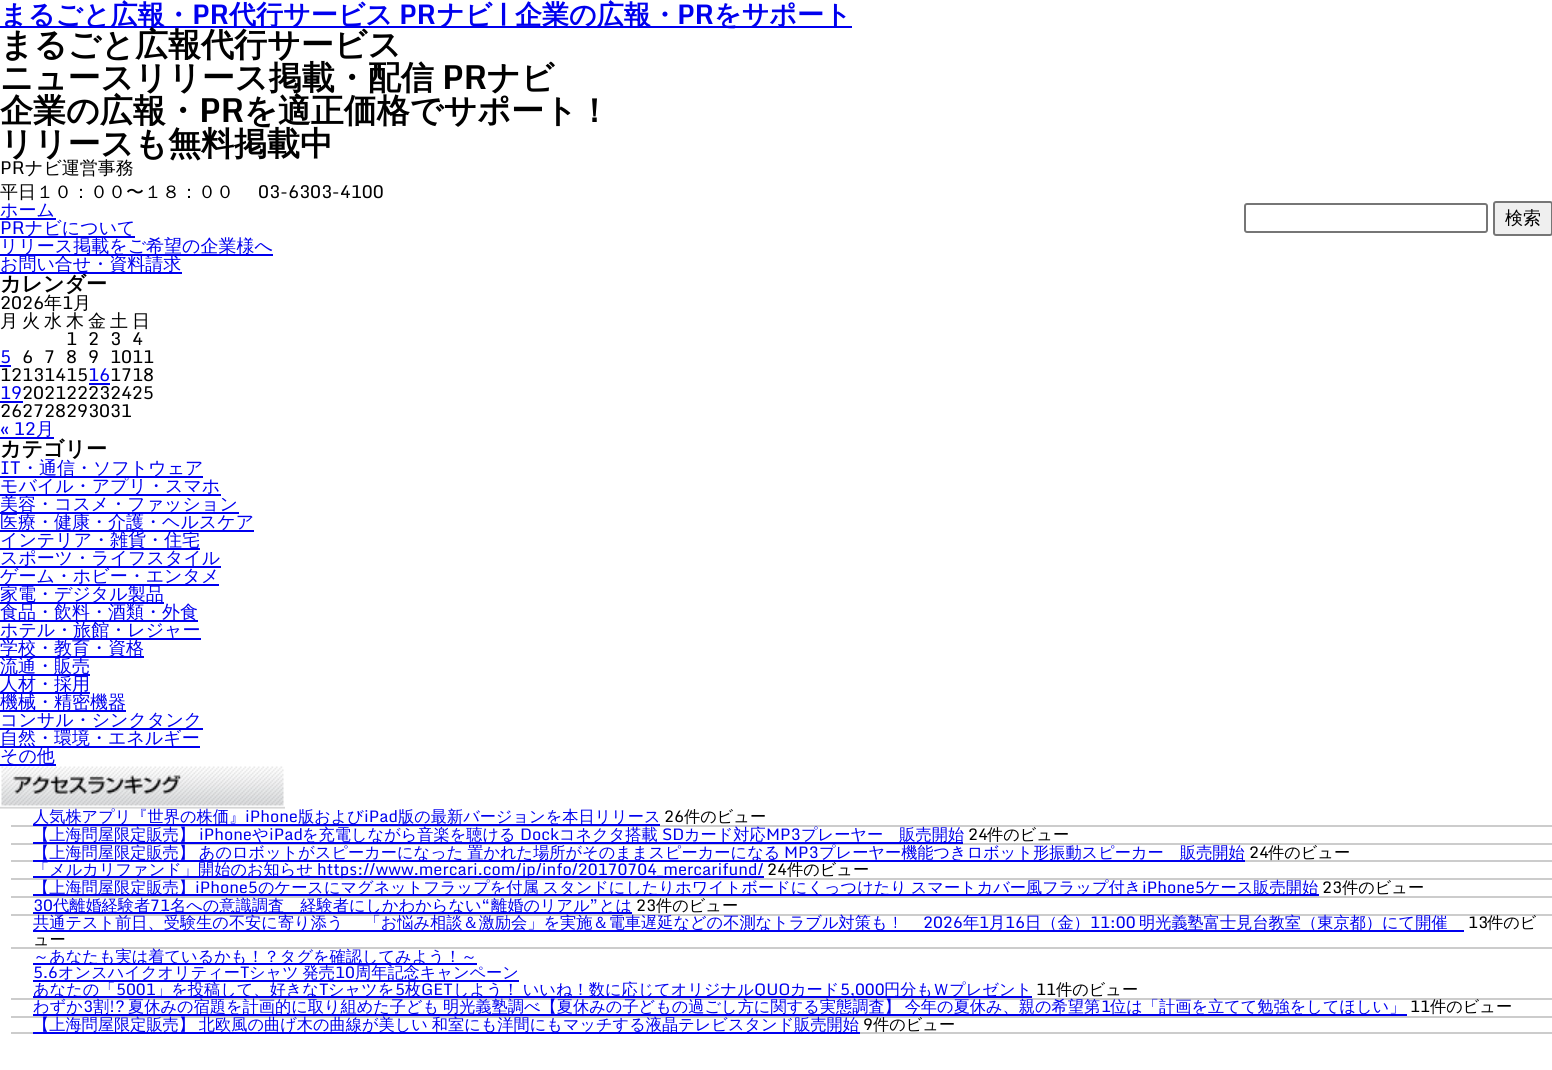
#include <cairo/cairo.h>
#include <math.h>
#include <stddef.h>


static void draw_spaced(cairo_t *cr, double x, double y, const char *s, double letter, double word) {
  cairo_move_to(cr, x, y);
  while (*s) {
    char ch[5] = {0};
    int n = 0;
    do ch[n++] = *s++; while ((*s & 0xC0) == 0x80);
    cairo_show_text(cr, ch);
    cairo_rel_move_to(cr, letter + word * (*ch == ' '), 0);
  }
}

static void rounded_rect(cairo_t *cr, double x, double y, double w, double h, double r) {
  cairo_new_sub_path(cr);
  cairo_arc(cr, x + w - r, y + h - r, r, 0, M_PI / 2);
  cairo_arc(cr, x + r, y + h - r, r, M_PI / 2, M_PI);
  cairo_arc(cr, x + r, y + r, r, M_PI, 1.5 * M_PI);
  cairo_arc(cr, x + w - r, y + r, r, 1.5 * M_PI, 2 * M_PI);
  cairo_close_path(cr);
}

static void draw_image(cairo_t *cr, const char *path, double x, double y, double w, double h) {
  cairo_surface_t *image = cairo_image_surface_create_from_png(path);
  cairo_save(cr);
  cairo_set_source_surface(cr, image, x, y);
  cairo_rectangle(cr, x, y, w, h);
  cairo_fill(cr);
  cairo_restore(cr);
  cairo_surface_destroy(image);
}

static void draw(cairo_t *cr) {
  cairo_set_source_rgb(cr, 1, 1, 1);
  cairo_paint(cr);
  cairo_set_source_rgb(cr, 0, 0, 238 / 255.0);
  cairo_rectangle(cr, 0, 26, 852, 2);
  cairo_fill(cr);
  rounded_rect(cr, 1245, 204, 242, 28, 2);
  cairo_set_source_rgb(cr, 118 / 255.0, 118 / 255.0, 118 / 255.0);
  cairo_stroke(cr);
  cairo_set_source_rgb(cr, 239 / 255.0, 239 / 255.0, 239 / 255.0);
  rounded_rect(cr, 1494, 202, 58, 33, 2);
  cairo_fill_preserve(cr);
  cairo_set_source_rgb(cr, 118 / 255.0, 118 / 255.0, 118 / 255.0);
  cairo_stroke(cr);
  cairo_set_source_rgb(cr, 0, 0, 238 / 255.0);
  cairo_rectangle(cr, 0, 218, 56, 2);
  cairo_fill(cr);
  cairo_rectangle(cr, 0, 236, 135, 2);
  cairo_fill(cr);
  cairo_rectangle(cr, 0, 254, 273, 2);
  cairo_fill(cr);
  cairo_rectangle(cr, 0, 365, 11, 2);
  cairo_fill(cr);
  cairo_rectangle(cr, 89, 383, 21, 2);
  cairo_fill(cr);
  cairo_rectangle(cr, 0, 401, 23, 2);
  cairo_fill(cr);
  cairo_rectangle(cr, 0, 437, 54, 2);
  cairo_fill(cr);
  cairo_rectangle(cr, 0, 476, 203, 2);
  cairo_fill(cr);
  cairo_rectangle(cr, 0, 494, 221, 2);
  cairo_fill(cr);
  cairo_rectangle(cr, 0, 512, 239, 2);
  cairo_fill(cr);
  cairo_rectangle(cr, 0, 530, 254, 2);
  cairo_fill(cr);
  cairo_rectangle(cr, 0, 548, 200, 2);
  cairo_fill(cr);
  cairo_rectangle(cr, 0, 566, 221, 2);
  cairo_fill(cr);
  cairo_rectangle(cr, 0, 584, 219, 2);
  cairo_fill(cr);
  cairo_rectangle(cr, 0, 602, 164, 2);
  cairo_fill(cr);
  cairo_rectangle(cr, 0, 620, 198, 2);
  cairo_fill(cr);
  cairo_rectangle(cr, 0, 638, 201, 2);
  cairo_fill(cr);
  cairo_rectangle(cr, 0, 656, 144, 2);
  cairo_fill(cr);
  cairo_rectangle(cr, 0, 674, 90, 2);
  cairo_fill(cr);
  cairo_rectangle(cr, 0, 692, 90, 2);
  cairo_fill(cr);
  cairo_rectangle(cr, 0, 710, 126, 2);
  cairo_fill(cr);
  cairo_rectangle(cr, 0, 728, 203, 2);
  cairo_fill(cr);
  cairo_rectangle(cr, 0, 746, 200, 2);
  cairo_fill(cr);
  cairo_rectangle(cr, 0, 764, 56, 2);
  cairo_fill(cr);
  draw_image(cr, "images/1.png", 0, 766, 285, 43);
  cairo_set_source_rgb(cr, 204 / 255.0, 204 / 255.0, 204 / 255.0);
  cairo_rectangle(cr, 11, 825, 1541, 2);
  cairo_fill(cr);
  cairo_set_source_rgb(cr, 0, 0, 238 / 255.0);
  cairo_rectangle(cr, 33, 824, 627, 2);
  cairo_fill(cr);
  cairo_set_source_rgb(cr, 204 / 255.0, 204 / 255.0, 204 / 255.0);
  cairo_rectangle(cr, 11, 843, 1541, 2);
  cairo_fill(cr);
  cairo_set_source_rgb(cr, 0, 0, 238 / 255.0);
  cairo_rectangle(cr, 33, 842, 930, 2);
  cairo_fill(cr);
  cairo_set_source_rgb(cr, 204 / 255.0, 204 / 255.0, 204 / 255.0);
  cairo_rectangle(cr, 11, 860, 1541, 2);
  cairo_fill(cr);
  cairo_set_source_rgb(cr, 0, 0, 238 / 255.0);
  cairo_rectangle(cr, 33, 860, 1212, 2);
  cairo_fill(cr);
  cairo_set_source_rgb(cr, 204 / 255.0, 204 / 255.0, 204 / 255.0);
  cairo_rectangle(cr, 11, 878, 1541, 2);
  cairo_fill(cr);
  cairo_set_source_rgb(cr, 0, 0, 238 / 255.0);
  cairo_rectangle(cr, 33, 876, 731, 2);
  cairo_fill(cr);
  cairo_set_source_rgb(cr, 204 / 255.0, 204 / 255.0, 204 / 255.0);
  cairo_rectangle(cr, 11, 896, 1541, 2);
  cairo_fill(cr);
  cairo_set_source_rgb(cr, 0, 0, 238 / 255.0);
  cairo_rectangle(cr, 33, 894, 1286, 2);
  cairo_fill(cr);
  cairo_set_source_rgb(cr, 204 / 255.0, 204 / 255.0, 204 / 255.0);
  cairo_rectangle(cr, 11, 914, 1541, 2);
  cairo_fill(cr);
  cairo_set_source_rgb(cr, 0, 0, 238 / 255.0);
  cairo_rectangle(cr, 33, 912, 599, 2);
  cairo_fill(cr);
  cairo_set_source_rgb(cr, 204 / 255.0, 204 / 255.0, 204 / 255.0);
  cairo_rectangle(cr, 11, 947, 1541, 2);
  cairo_fill(cr);
  cairo_set_source_rgb(cr, 0, 0, 238 / 255.0);
  cairo_rectangle(cr, 33, 930, 1431, 2);
  cairo_fill(cr);
  cairo_set_source_rgb(cr, 204 / 255.0, 204 / 255.0, 204 / 255.0);
  cairo_rectangle(cr, 11, 998, 1541, 2);
  cairo_fill(cr);
  cairo_set_source_rgb(cr, 0, 0, 238 / 255.0);
  cairo_rectangle(cr, 33, 963, 444, 2);
  cairo_fill(cr);
  cairo_rectangle(cr, 33, 980, 486, 2);
  cairo_fill(cr);
  cairo_rectangle(cr, 33, 996, 999, 2);
  cairo_fill(cr);
  cairo_set_source_rgb(cr, 204 / 255.0, 204 / 255.0, 204 / 255.0);
  cairo_rectangle(cr, 11, 1016, 1541, 2);
  cairo_fill(cr);
  cairo_set_source_rgb(cr, 0, 0, 238 / 255.0);
  cairo_rectangle(cr, 33, 1014, 1374, 2);
  cairo_fill(cr);
  cairo_set_source_rgb(cr, 204 / 255.0, 204 / 255.0, 204 / 255.0);
  cairo_rectangle(cr, 11, 1032, 1541, 2);
  cairo_fill(cr);
  cairo_set_source_rgb(cr, 0, 0, 238 / 255.0);
  cairo_rectangle(cr, 33, 1032, 827, 2);
  cairo_fill(cr);
  cairo_select_font_face(cr, "WenQuanYi Zen Hei", CAIRO_FONT_SLANT_NORMAL, CAIRO_FONT_WEIGHT_BOLD);
  cairo_set_font_size(cr, 27);
  cairo_move_to(cr, 0, 24);
  cairo_show_text(cr, "まるごと広報・");
  cairo_select_font_face(cr, "Monda", CAIRO_FONT_SLANT_NORMAL, CAIRO_FONT_WEIGHT_BOLD);
  cairo_move_to(cr, 192, 24);
  cairo_show_text(cr, "PR");
  cairo_select_font_face(cr, "WenQuanYi Zen Hei", CAIRO_FONT_SLANT_NORMAL, CAIRO_FONT_WEIGHT_BOLD);
  cairo_move_to(cr, 229, 24);
  cairo_show_text(cr, "代行サービス");
  cairo_select_font_face(cr, "Monda", CAIRO_FONT_SLANT_NORMAL, CAIRO_FONT_WEIGHT_BOLD);
  cairo_move_to(cr, 399, 24);
  cairo_show_text(cr, "PR");
  cairo_select_font_face(cr, "WenQuanYi Zen Hei", CAIRO_FONT_SLANT_NORMAL, CAIRO_FONT_WEIGHT_BOLD);
  cairo_move_to(cr, 437, 24);
  cairo_show_text(cr, "ナビ");
  cairo_select_font_face(cr, "Monda", CAIRO_FONT_SLANT_NORMAL, CAIRO_FONT_WEIGHT_BOLD);
  cairo_move_to(cr, 499, 24);
  cairo_show_text(cr, "|");
  cairo_select_font_face(cr, "WenQuanYi Zen Hei", CAIRO_FONT_SLANT_NORMAL, CAIRO_FONT_WEIGHT_BOLD);
  cairo_move_to(cr, 515, 24);
  cairo_show_text(cr, "企業の広報・");
  cairo_select_font_face(cr, "Monda", CAIRO_FONT_SLANT_NORMAL, CAIRO_FONT_WEIGHT_BOLD);
  cairo_move_to(cr, 677, 24);
  cairo_show_text(cr, "PR");
  cairo_select_font_face(cr, "WenQuanYi Zen Hei", CAIRO_FONT_SLANT_NORMAL, CAIRO_FONT_WEIGHT_BOLD);
  cairo_move_to(cr, 714, 24);
  cairo_show_text(cr, "をサポート");
  cairo_set_font_size(cr, 33);
  cairo_set_source_rgb(cr, 0, 0, 0);
  cairo_move_to(cr, 0, 56);
  cairo_show_text(cr, "まるごと広報代行サービス");
  cairo_move_to(cr, 0, 89);
  cairo_show_text(cr, "ニュースリリース掲載・配信");
  cairo_select_font_face(cr, "Monda", CAIRO_FONT_SLANT_NORMAL, CAIRO_FONT_WEIGHT_BOLD);
  cairo_move_to(cr, 442, 89);
  cairo_show_text(cr, "PR");
  cairo_select_font_face(cr, "WenQuanYi Zen Hei", CAIRO_FONT_SLANT_NORMAL, CAIRO_FONT_WEIGHT_BOLD);
  cairo_move_to(cr, 487, 89);
  cairo_show_text(cr, "ナビ");
  cairo_move_to(cr, 0, 122);
  cairo_show_text(cr, "企業の広報・");
  cairo_select_font_face(cr, "Monda", CAIRO_FONT_SLANT_NORMAL, CAIRO_FONT_WEIGHT_BOLD);
  cairo_move_to(cr, 199, 122);
  cairo_show_text(cr, "PR");
  cairo_select_font_face(cr, "WenQuanYi Zen Hei", CAIRO_FONT_SLANT_NORMAL, CAIRO_FONT_WEIGHT_BOLD);
  cairo_move_to(cr, 244, 122);
  cairo_show_text(cr, "を適正価格でサポート！");
  cairo_move_to(cr, 0, 155);
  cairo_show_text(cr, "リリースも無料掲載中");
  cairo_select_font_face(cr, "Monda", CAIRO_FONT_SLANT_NORMAL, CAIRO_FONT_WEIGHT_NORMAL);
  cairo_set_font_size(cr, 18);
  cairo_move_to(cr, 0, 174);
  cairo_show_text(cr, "PR");
  cairo_select_font_face(cr, "WenQuanYi Zen Hei Medium", CAIRO_FONT_SLANT_NORMAL, CAIRO_FONT_WEIGHT_NORMAL);
  cairo_move_to(cr, 25, 174);
  cairo_show_text(cr, "ナビ運営事務");
  cairo_move_to(cr, 0, 198);
  cairo_show_text(cr, "平日１０：００〜１８：００");
  cairo_select_font_face(cr, "Monda", CAIRO_FONT_SLANT_NORMAL, CAIRO_FONT_WEIGHT_NORMAL);
  cairo_move_to(cr, 258, 198);
  cairo_show_text(cr, "03-6303-4100");
  cairo_select_font_face(cr, "WenQuanYi Zen Hei Medium", CAIRO_FONT_SLANT_NORMAL, CAIRO_FONT_WEIGHT_NORMAL);
  cairo_move_to(cr, 1505, 224);
  cairo_show_text(cr, "検索");
  cairo_set_source_rgb(cr, 0, 0, 238 / 255.0);
  cairo_move_to(cr, 0, 216);
  cairo_show_text(cr, "ホーム");
  cairo_select_font_face(cr, "Monda", CAIRO_FONT_SLANT_NORMAL, CAIRO_FONT_WEIGHT_NORMAL);
  cairo_move_to(cr, 0, 234);
  cairo_show_text(cr, "PR");
  cairo_select_font_face(cr, "WenQuanYi Zen Hei Medium", CAIRO_FONT_SLANT_NORMAL, CAIRO_FONT_WEIGHT_NORMAL);
  cairo_move_to(cr, 25, 234);
  cairo_show_text(cr, "ナビについて");
  cairo_move_to(cr, 0, 252);
  cairo_show_text(cr, "リリース掲載をご希望の企業様へ");
  cairo_select_font_face(cr, "WenQuanYi Zen Hei", CAIRO_FONT_SLANT_NORMAL, CAIRO_FONT_WEIGHT_BOLD);
  cairo_set_font_size(cr, 21);
  cairo_set_source_rgb(cr, 0, 0, 0);
  cairo_move_to(cr, 0, 291);
  cairo_show_text(cr, "カレンダー");
  cairo_set_source_rgb(cr, 0, 0, 238 / 255.0);
  cairo_rectangle(cr, 0, 272, 182, 2);
  cairo_fill(cr);
  cairo_select_font_face(cr, "WenQuanYi Zen Hei Medium", CAIRO_FONT_SLANT_NORMAL, CAIRO_FONT_WEIGHT_NORMAL);
  cairo_set_font_size(cr, 18);
  cairo_move_to(cr, 0, 270);
  cairo_show_text(cr, "お問い合せ・資料請求");
  cairo_select_font_face(cr, "Monda", CAIRO_FONT_SLANT_NORMAL, CAIRO_FONT_WEIGHT_NORMAL);
  cairo_set_source_rgb(cr, 0, 0, 0);
  cairo_move_to(cr, 0, 309);
  cairo_show_text(cr, "2026");
  cairo_select_font_face(cr, "WenQuanYi Zen Hei Medium", CAIRO_FONT_SLANT_NORMAL, CAIRO_FONT_WEIGHT_NORMAL);
  cairo_move_to(cr, 44, 309);
  cairo_show_text(cr, "年");
  cairo_select_font_face(cr, "Monda", CAIRO_FONT_SLANT_NORMAL, CAIRO_FONT_WEIGHT_NORMAL);
  cairo_move_to(cr, 62, 309);
  cairo_show_text(cr, "1");
  cairo_select_font_face(cr, "WenQuanYi Zen Hei Medium", CAIRO_FONT_SLANT_NORMAL, CAIRO_FONT_WEIGHT_NORMAL);
  cairo_move_to(cr, 73, 309);
  cairo_show_text(cr, "月");
  cairo_move_to(cr, 0, 327);
  cairo_show_text(cr, "月");
  cairo_move_to(cr, 22, 327);
  cairo_show_text(cr, "火");
  cairo_move_to(cr, 44, 327);
  cairo_show_text(cr, "水");
  cairo_move_to(cr, 66, 327);
  cairo_show_text(cr, "木");
  cairo_move_to(cr, 88, 327);
  cairo_show_text(cr, "金");
  cairo_move_to(cr, 110, 327);
  cairo_show_text(cr, "土");
  cairo_move_to(cr, 132, 327);
  cairo_show_text(cr, "日");
  cairo_select_font_face(cr, "Monda", CAIRO_FONT_SLANT_NORMAL, CAIRO_FONT_WEIGHT_NORMAL);
  cairo_move_to(cr, 66, 345);
  cairo_show_text(cr, "1");
  cairo_move_to(cr, 88, 345);
  cairo_show_text(cr, "2");
  cairo_move_to(cr, 110, 345);
  cairo_show_text(cr, "3");
  cairo_move_to(cr, 132, 345);
  cairo_show_text(cr, "4");
  cairo_set_source_rgb(cr, 0, 0, 238 / 255.0);
  cairo_move_to(cr, 0, 363);
  cairo_show_text(cr, "5");
  cairo_set_source_rgb(cr, 0, 0, 0);
  cairo_move_to(cr, 22, 363);
  cairo_show_text(cr, "6");
  cairo_move_to(cr, 44, 363);
  cairo_show_text(cr, "7");
  cairo_move_to(cr, 66, 363);
  cairo_show_text(cr, "8");
  cairo_move_to(cr, 88, 363);
  cairo_show_text(cr, "9");
  cairo_move_to(cr, 110, 363);
  cairo_show_text(cr, "1011");
  cairo_move_to(cr, 0, 381);
  cairo_show_text(cr, "12131415");
  cairo_set_source_rgb(cr, 0, 0, 238 / 255.0);
  cairo_move_to(cr, 88, 381);
  cairo_show_text(cr, "16");
  cairo_set_source_rgb(cr, 0, 0, 0);
  cairo_move_to(cr, 110, 381);
  cairo_show_text(cr, "1718");
  cairo_set_source_rgb(cr, 0, 0, 238 / 255.0);
  cairo_move_to(cr, 0, 399);
  cairo_show_text(cr, "19");
  cairo_set_source_rgb(cr, 0, 0, 0);
  cairo_move_to(cr, 22, 399);
  cairo_show_text(cr, "202122232425");
  cairo_move_to(cr, 0, 417);
  cairo_show_text(cr, "262728293031");
  cairo_set_source_rgb(cr, 0, 0, 238 / 255.0);
  cairo_move_to(cr, 0, 435);
  cairo_show_text(cr, "« 12");
  cairo_select_font_face(cr, "WenQuanYi Zen Hei Medium", CAIRO_FONT_SLANT_NORMAL, CAIRO_FONT_WEIGHT_NORMAL);
  cairo_move_to(cr, 36, 435);
  cairo_show_text(cr, "月");
  cairo_select_font_face(cr, "WenQuanYi Zen Hei", CAIRO_FONT_SLANT_NORMAL, CAIRO_FONT_WEIGHT_BOLD);
  cairo_set_font_size(cr, 21);
  cairo_set_source_rgb(cr, 0, 0, 0);
  cairo_move_to(cr, 0, 456);
  cairo_show_text(cr, "カテゴリー");
  cairo_select_font_face(cr, "Monda", CAIRO_FONT_SLANT_NORMAL, CAIRO_FONT_WEIGHT_NORMAL);
  cairo_set_font_size(cr, 18);
  cairo_set_source_rgb(cr, 0, 0, 238 / 255.0);
  cairo_move_to(cr, 0, 474);
  cairo_show_text(cr, "IT");
  cairo_select_font_face(cr, "WenQuanYi Zen Hei Medium", CAIRO_FONT_SLANT_NORMAL, CAIRO_FONT_WEIGHT_NORMAL);
  cairo_move_to(cr, 21, 474);
  cairo_show_text(cr, "・通信・ソフトウェア");
  cairo_move_to(cr, 0, 492);
  cairo_show_text(cr, "モバイル・アプリ・スマホ");
  cairo_move_to(cr, 0, 510);
  cairo_show_text(cr, "美容・コスメ・ファッション");
  cairo_move_to(cr, 0, 528);
  cairo_show_text(cr, "医療・健康・介護・ヘルスケア");
  cairo_move_to(cr, 0, 546);
  cairo_show_text(cr, "インテリア・雑貨・住宅");
  cairo_move_to(cr, 0, 564);
  cairo_show_text(cr, "スポーツ・ライフスタイル");
  cairo_move_to(cr, 0, 582);
  cairo_show_text(cr, "ゲーム・ホビー・エンタメ");
  cairo_move_to(cr, 0, 600);
  cairo_show_text(cr, "家電・デジタル製品");
  cairo_move_to(cr, 0, 618);
  cairo_show_text(cr, "食品・飲料・酒類・外食");
  cairo_move_to(cr, 0, 636);
  cairo_show_text(cr, "ホテル・旅館・レジャー");
  cairo_move_to(cr, 0, 654);
  cairo_show_text(cr, "学校・教育・資格");
  cairo_move_to(cr, 0, 672);
  cairo_show_text(cr, "流通・販売");
  cairo_move_to(cr, 0, 690);
  cairo_show_text(cr, "人材・採用");
  cairo_move_to(cr, 0, 708);
  cairo_show_text(cr, "機械・精密機器");
  cairo_move_to(cr, 0, 726);
  cairo_show_text(cr, "コンサル・シンクタンク");
  cairo_move_to(cr, 0, 744);
  cairo_show_text(cr, "自然・環境・エネルギー");
  cairo_move_to(cr, 0, 762);
  cairo_show_text(cr, "その他");
  cairo_set_font_size(cr, 16.2);
  cairo_move_to(cr, 33, 822);
  cairo_show_text(cr, "人気株アプリ『世界の株価』");
  cairo_select_font_face(cr, "Monda", CAIRO_FONT_SLANT_NORMAL, CAIRO_FONT_WEIGHT_NORMAL);
  cairo_move_to(cr, 245, 822);
  cairo_show_text(cr, "iPhone");
  cairo_select_font_face(cr, "WenQuanYi Zen Hei Medium", CAIRO_FONT_SLANT_NORMAL, CAIRO_FONT_WEIGHT_NORMAL);
  cairo_move_to(cr, 298, 822);
  cairo_show_text(cr, "版および");
  cairo_select_font_face(cr, "Monda", CAIRO_FONT_SLANT_NORMAL, CAIRO_FONT_WEIGHT_NORMAL);
  cairo_move_to(cr, 364, 822);
  cairo_show_text(cr, "iPad");
  cairo_select_font_face(cr, "WenQuanYi Zen Hei Medium", CAIRO_FONT_SLANT_NORMAL, CAIRO_FONT_WEIGHT_NORMAL);
  cairo_move_to(cr, 398, 822);
  cairo_show_text(cr, "版の最新バージョンを本日リリース");
  cairo_select_font_face(cr, "Monda", CAIRO_FONT_SLANT_NORMAL, CAIRO_FONT_WEIGHT_NORMAL);
  cairo_set_source_rgb(cr, 0, 0, 0);
  cairo_move_to(cr, 664, 822);
  cairo_show_text(cr, "26");
  cairo_select_font_face(cr, "WenQuanYi Zen Hei Medium", CAIRO_FONT_SLANT_NORMAL, CAIRO_FONT_WEIGHT_NORMAL);
  cairo_move_to(cr, 684, 822);
  cairo_show_text(cr, "件のビュー");
  cairo_set_source_rgb(cr, 0, 0, 238 / 255.0);
  cairo_move_to(cr, 33, 840);
  cairo_show_text(cr, "【上海問屋限定販売】");
  cairo_select_font_face(cr, "Monda", CAIRO_FONT_SLANT_NORMAL, CAIRO_FONT_WEIGHT_NORMAL);
  cairo_move_to(cr, 199, 840);
  cairo_show_text(cr, "iPhone");
  cairo_select_font_face(cr, "WenQuanYi Zen Hei Medium", CAIRO_FONT_SLANT_NORMAL, CAIRO_FONT_WEIGHT_NORMAL);
  cairo_move_to(cr, 252, 840);
  cairo_show_text(cr, "や");
  cairo_select_font_face(cr, "Monda", CAIRO_FONT_SLANT_NORMAL, CAIRO_FONT_WEIGHT_NORMAL);
  cairo_move_to(cr, 269, 840);
  cairo_show_text(cr, "iPad");
  cairo_select_font_face(cr, "WenQuanYi Zen Hei Medium", CAIRO_FONT_SLANT_NORMAL, CAIRO_FONT_WEIGHT_NORMAL);
  cairo_move_to(cr, 302, 840);
  cairo_show_text(cr, "を充電しながら音楽を聴ける");
  cairo_select_font_face(cr, "Monda", CAIRO_FONT_SLANT_NORMAL, CAIRO_FONT_WEIGHT_NORMAL);
  cairo_move_to(cr, 520, 840);
  cairo_show_text(cr, "Dock");
  cairo_select_font_face(cr, "WenQuanYi Zen Hei Medium", CAIRO_FONT_SLANT_NORMAL, CAIRO_FONT_WEIGHT_NORMAL);
  cairo_move_to(cr, 559, 840);
  cairo_show_text(cr, "コネクタ搭載");
  cairo_select_font_face(cr, "Monda", CAIRO_FONT_SLANT_NORMAL, CAIRO_FONT_WEIGHT_NORMAL);
  cairo_move_to(cr, 662, 840);
  cairo_show_text(cr, "SD");
  cairo_select_font_face(cr, "WenQuanYi Zen Hei Medium", CAIRO_FONT_SLANT_NORMAL, CAIRO_FONT_WEIGHT_NORMAL);
  cairo_move_to(cr, 684, 840);
  cairo_show_text(cr, "カード対応");
  cairo_select_font_face(cr, "Monda", CAIRO_FONT_SLANT_NORMAL, CAIRO_FONT_WEIGHT_NORMAL);
  cairo_move_to(cr, 766, 840);
  cairo_show_text(cr, "MP3");
  cairo_select_font_face(cr, "WenQuanYi Zen Hei Medium", CAIRO_FONT_SLANT_NORMAL, CAIRO_FONT_WEIGHT_NORMAL);
  cairo_move_to(cr, 801, 840);
  cairo_show_text(cr, "プレーヤー　販売開始");
  cairo_select_font_face(cr, "Monda", CAIRO_FONT_SLANT_NORMAL, CAIRO_FONT_WEIGHT_NORMAL);
  cairo_set_source_rgb(cr, 0, 0, 0);
  cairo_move_to(cr, 968, 840);
  cairo_show_text(cr, "24");
  cairo_select_font_face(cr, "WenQuanYi Zen Hei Medium", CAIRO_FONT_SLANT_NORMAL, CAIRO_FONT_WEIGHT_NORMAL);
  cairo_move_to(cr, 987, 840);
  cairo_show_text(cr, "件のビュー");
  cairo_set_source_rgb(cr, 0, 0, 238 / 255.0);
  draw_spaced(cr, 33, 858, "【上海問屋限定販売】 あのロボットがスピーカーになった 置かれた場所がそのままスピーカーになる", 0, -1);
  cairo_select_font_face(cr, "Monda", CAIRO_FONT_SLANT_NORMAL, CAIRO_FONT_WEIGHT_NORMAL);
  cairo_move_to(cr, 784, 858);
  cairo_show_text(cr, "MP3");
  cairo_select_font_face(cr, "WenQuanYi Zen Hei Medium", CAIRO_FONT_SLANT_NORMAL, CAIRO_FONT_WEIGHT_NORMAL);
  cairo_move_to(cr, 819, 858);
  cairo_show_text(cr, "プレーヤー機能つきロボット形振動スピーカー　販売開始");
  cairo_select_font_face(cr, "Monda", CAIRO_FONT_SLANT_NORMAL, CAIRO_FONT_WEIGHT_NORMAL);
  cairo_set_source_rgb(cr, 0, 0, 0);
  cairo_move_to(cr, 1249, 858);
  cairo_show_text(cr, "24");
  cairo_select_font_face(cr, "WenQuanYi Zen Hei Medium", CAIRO_FONT_SLANT_NORMAL, CAIRO_FONT_WEIGHT_NORMAL);
  cairo_move_to(cr, 1268, 858);
  cairo_show_text(cr, "件のビュー");
  cairo_set_source_rgb(cr, 0, 0, 238 / 255.0);
  cairo_move_to(cr, 33, 875);
  cairo_show_text(cr, "「メルカリファンド」開始のお知らせ");
  cairo_select_font_face(cr, "Monda", CAIRO_FONT_SLANT_NORMAL, CAIRO_FONT_WEIGHT_NORMAL);
  cairo_move_to(cr, 317, 875);
  cairo_show_text(cr, "https://www.mercari.com/jp/info/20170704_mercarifund/");
  cairo_set_source_rgb(cr, 0, 0, 0);
  cairo_move_to(cr, 767, 875);
  cairo_show_text(cr, "24");
  cairo_select_font_face(cr, "WenQuanYi Zen Hei Medium", CAIRO_FONT_SLANT_NORMAL, CAIRO_FONT_WEIGHT_NORMAL);
  cairo_move_to(cr, 787, 875);
  cairo_show_text(cr, "件のビュー");
  cairo_set_source_rgb(cr, 0, 0, 238 / 255.0);
  cairo_move_to(cr, 33, 893);
  cairo_show_text(cr, "【上海問屋限定販売】");
  cairo_select_font_face(cr, "Monda", CAIRO_FONT_SLANT_NORMAL, CAIRO_FONT_WEIGHT_NORMAL);
  cairo_move_to(cr, 195, 893);
  cairo_show_text(cr, "iPhone5");
  cairo_select_font_face(cr, "WenQuanYi Zen Hei Medium", CAIRO_FONT_SLANT_NORMAL, CAIRO_FONT_WEIGHT_NORMAL);
  draw_spaced(cr, 258, 893, "のケースにマグネットフラップを付属 スタンドにしたりホワイトボードにくっつけたり スマートカバー風フラップ付き", 0, -1);
  cairo_select_font_face(cr, "Monda", CAIRO_FONT_SLANT_NORMAL, CAIRO_FONT_WEIGHT_NORMAL);
  cairo_move_to(cr, 1142, 893);
  cairo_show_text(cr, "iPhone5");
  cairo_select_font_face(cr, "WenQuanYi Zen Hei Medium", CAIRO_FONT_SLANT_NORMAL, CAIRO_FONT_WEIGHT_NORMAL);
  cairo_move_to(cr, 1204, 893);
  cairo_show_text(cr, "ケース販売開始");
  cairo_select_font_face(cr, "Monda", CAIRO_FONT_SLANT_NORMAL, CAIRO_FONT_WEIGHT_NORMAL);
  cairo_set_source_rgb(cr, 0, 0, 0);
  cairo_move_to(cr, 1322, 893);
  cairo_show_text(cr, "23");
  cairo_select_font_face(cr, "WenQuanYi Zen Hei Medium", CAIRO_FONT_SLANT_NORMAL, CAIRO_FONT_WEIGHT_NORMAL);
  cairo_move_to(cr, 1342, 893);
  cairo_show_text(cr, "件のビュー");
  cairo_select_font_face(cr, "Monda", CAIRO_FONT_SLANT_NORMAL, CAIRO_FONT_WEIGHT_NORMAL);
  cairo_set_source_rgb(cr, 0, 0, 238 / 255.0);
  cairo_move_to(cr, 33, 911);
  cairo_show_text(cr, "30");
  cairo_select_font_face(cr, "WenQuanYi Zen Hei Medium", CAIRO_FONT_SLANT_NORMAL, CAIRO_FONT_WEIGHT_NORMAL);
  cairo_move_to(cr, 53, 911);
  cairo_show_text(cr, "代離婚経験者");
  cairo_select_font_face(cr, "Monda", CAIRO_FONT_SLANT_NORMAL, CAIRO_FONT_WEIGHT_NORMAL);
  cairo_move_to(cr, 150, 911);
  cairo_show_text(cr, "71");
  cairo_select_font_face(cr, "WenQuanYi Zen Hei Medium", CAIRO_FONT_SLANT_NORMAL, CAIRO_FONT_WEIGHT_NORMAL);
  cairo_move_to(cr, 170, 911);
  cairo_show_text(cr, "名への意識調査　経験者にしかわからない");
  cairo_select_font_face(cr, "Monda", CAIRO_FONT_SLANT_NORMAL, CAIRO_FONT_WEIGHT_NORMAL);
  cairo_move_to(cr, 481, 911);
  cairo_show_text(cr, "“");
  cairo_select_font_face(cr, "WenQuanYi Zen Hei Medium", CAIRO_FONT_SLANT_NORMAL, CAIRO_FONT_WEIGHT_NORMAL);
  cairo_move_to(cr, 491, 911);
  cairo_show_text(cr, "離婚のリアル");
  cairo_select_font_face(cr, "Monda", CAIRO_FONT_SLANT_NORMAL, CAIRO_FONT_WEIGHT_NORMAL);
  cairo_move_to(cr, 589, 911);
  cairo_show_text(cr, "”");
  cairo_select_font_face(cr, "WenQuanYi Zen Hei Medium", CAIRO_FONT_SLANT_NORMAL, CAIRO_FONT_WEIGHT_NORMAL);
  cairo_move_to(cr, 599, 911);
  cairo_show_text(cr, "とは");
  cairo_select_font_face(cr, "Monda", CAIRO_FONT_SLANT_NORMAL, CAIRO_FONT_WEIGHT_NORMAL);
  cairo_set_source_rgb(cr, 0, 0, 0);
  cairo_move_to(cr, 636, 911);
  cairo_show_text(cr, "23");
  cairo_select_font_face(cr, "WenQuanYi Zen Hei Medium", CAIRO_FONT_SLANT_NORMAL, CAIRO_FONT_WEIGHT_NORMAL);
  cairo_move_to(cr, 656, 911);
  cairo_show_text(cr, "件のビュー");
  cairo_set_source_rgb(cr, 0, 0, 238 / 255.0);
  cairo_move_to(cr, 33, 928);
  cairo_show_text(cr, "共通テスト前日、受験生の不安に寄り添う　 「お悩み相談＆激励会」を実施＆電車遅延などの不測なトラブル対策も！");
  cairo_select_font_face(cr, "Monda", CAIRO_FONT_SLANT_NORMAL, CAIRO_FONT_WEIGHT_NORMAL);
  cairo_move_to(cr, 923, 928);
  cairo_show_text(cr, "2026");
  cairo_select_font_face(cr, "WenQuanYi Zen Hei Medium", CAIRO_FONT_SLANT_NORMAL, CAIRO_FONT_WEIGHT_NORMAL);
  cairo_move_to(cr, 963, 928);
  cairo_show_text(cr, "年");
  cairo_select_font_face(cr, "Monda", CAIRO_FONT_SLANT_NORMAL, CAIRO_FONT_WEIGHT_NORMAL);
  cairo_move_to(cr, 979, 928);
  cairo_show_text(cr, "1");
  cairo_select_font_face(cr, "WenQuanYi Zen Hei Medium", CAIRO_FONT_SLANT_NORMAL, CAIRO_FONT_WEIGHT_NORMAL);
  cairo_move_to(cr, 989, 928);
  cairo_show_text(cr, "月");
  cairo_select_font_face(cr, "Monda", CAIRO_FONT_SLANT_NORMAL, CAIRO_FONT_WEIGHT_NORMAL);
  cairo_move_to(cr, 1005, 928);
  cairo_show_text(cr, "16");
  cairo_select_font_face(cr, "WenQuanYi Zen Hei Medium", CAIRO_FONT_SLANT_NORMAL, CAIRO_FONT_WEIGHT_NORMAL);
  cairo_move_to(cr, 1025, 928);
  cairo_show_text(cr, "日（金）");
  cairo_select_font_face(cr, "Monda", CAIRO_FONT_SLANT_NORMAL, CAIRO_FONT_WEIGHT_NORMAL);
  cairo_move_to(cr, 1090, 928);
  cairo_show_text(cr, "11:00");
  cairo_select_font_face(cr, "WenQuanYi Zen Hei Medium", CAIRO_FONT_SLANT_NORMAL, CAIRO_FONT_WEIGHT_NORMAL);
  cairo_move_to(cr, 1139, 928);
  cairo_show_text(cr, "明光義塾富士見台教室（東京都）にて開催");
  cairo_select_font_face(cr, "Monda", CAIRO_FONT_SLANT_NORMAL, CAIRO_FONT_WEIGHT_NORMAL);
  cairo_set_source_rgb(cr, 0, 0, 0);
  cairo_move_to(cr, 1468, 928);
  cairo_show_text(cr, "13");
  cairo_select_font_face(cr, "WenQuanYi Zen Hei Medium", CAIRO_FONT_SLANT_NORMAL, CAIRO_FONT_WEIGHT_NORMAL);
  cairo_move_to(cr, 1487, 928);
  cairo_show_text(cr, "件のビ");
  cairo_move_to(cr, 33, 945);
  cairo_show_text(cr, "ュー");
  cairo_set_source_rgb(cr, 0, 0, 238 / 255.0);
  cairo_move_to(cr, 33, 962);
  cairo_show_text(cr, "～あなたも実は着ているかも！？タグを確認してみよう！～");
  cairo_select_font_face(cr, "Monda", CAIRO_FONT_SLANT_NORMAL, CAIRO_FONT_WEIGHT_NORMAL);
  cairo_move_to(cr, 33, 978);
  cairo_show_text(cr, "5.6");
  cairo_select_font_face(cr, "WenQuanYi Zen Hei Medium", CAIRO_FONT_SLANT_NORMAL, CAIRO_FONT_WEIGHT_NORMAL);
  cairo_move_to(cr, 58, 978);
  cairo_show_text(cr, "オンスハイクオリティー");
  cairo_select_font_face(cr, "Monda", CAIRO_FONT_SLANT_NORMAL, CAIRO_FONT_WEIGHT_NORMAL);
  cairo_move_to(cr, 240, 978);
  cairo_show_text(cr, "T");
  cairo_select_font_face(cr, "WenQuanYi Zen Hei Medium", CAIRO_FONT_SLANT_NORMAL, CAIRO_FONT_WEIGHT_NORMAL);
  draw_spaced(cr, 249, 978, "シャツ 発売", 0, -1);
  cairo_select_font_face(cr, "Monda", CAIRO_FONT_SLANT_NORMAL, CAIRO_FONT_WEIGHT_NORMAL);
  cairo_move_to(cr, 335, 978);
  cairo_show_text(cr, "10");
  cairo_select_font_face(cr, "WenQuanYi Zen Hei Medium", CAIRO_FONT_SLANT_NORMAL, CAIRO_FONT_WEIGHT_NORMAL);
  cairo_move_to(cr, 355, 978);
  cairo_show_text(cr, "周年記念キャンペーン");
  cairo_move_to(cr, 33, 995);
  cairo_show_text(cr, "あなたの「");
  cairo_select_font_face(cr, "Monda", CAIRO_FONT_SLANT_NORMAL, CAIRO_FONT_WEIGHT_NORMAL);
  cairo_move_to(cr, 116, 995);
  cairo_show_text(cr, "5001");
  cairo_select_font_face(cr, "WenQuanYi Zen Hei Medium", CAIRO_FONT_SLANT_NORMAL, CAIRO_FONT_WEIGHT_NORMAL);
  cairo_move_to(cr, 155, 995);
  cairo_show_text(cr, "」を投稿して、好きな");
  cairo_select_font_face(cr, "Monda", CAIRO_FONT_SLANT_NORMAL, CAIRO_FONT_WEIGHT_NORMAL);
  cairo_move_to(cr, 319, 995);
  cairo_show_text(cr, "T");
  cairo_select_font_face(cr, "WenQuanYi Zen Hei Medium", CAIRO_FONT_SLANT_NORMAL, CAIRO_FONT_WEIGHT_NORMAL);
  cairo_move_to(cr, 328, 995);
  cairo_show_text(cr, "シャツを");
  cairo_select_font_face(cr, "Monda", CAIRO_FONT_SLANT_NORMAL, CAIRO_FONT_WEIGHT_NORMAL);
  cairo_move_to(cr, 395, 995);
  cairo_show_text(cr, "5");
  cairo_select_font_face(cr, "WenQuanYi Zen Hei Medium", CAIRO_FONT_SLANT_NORMAL, CAIRO_FONT_WEIGHT_NORMAL);
  cairo_move_to(cr, 405, 995);
  cairo_show_text(cr, "枚");
  cairo_select_font_face(cr, "Monda", CAIRO_FONT_SLANT_NORMAL, CAIRO_FONT_WEIGHT_NORMAL);
  cairo_move_to(cr, 421, 995);
  cairo_show_text(cr, "GET");
  cairo_select_font_face(cr, "WenQuanYi Zen Hei Medium", CAIRO_FONT_SLANT_NORMAL, CAIRO_FONT_WEIGHT_NORMAL);
  draw_spaced(cr, 453, 995, "しよう！ いいね！数に応じてオリジナル", 0, -1);
  cairo_select_font_face(cr, "Monda", CAIRO_FONT_SLANT_NORMAL, CAIRO_FONT_WEIGHT_NORMAL);
  cairo_move_to(cr, 754, 995);
  cairo_show_text(cr, "QUO");
  cairo_select_font_face(cr, "WenQuanYi Zen Hei Medium", CAIRO_FONT_SLANT_NORMAL, CAIRO_FONT_WEIGHT_NORMAL);
  cairo_move_to(cr, 790, 995);
  cairo_show_text(cr, "カード");
  cairo_select_font_face(cr, "Monda", CAIRO_FONT_SLANT_NORMAL, CAIRO_FONT_WEIGHT_NORMAL);
  cairo_move_to(cr, 840, 995);
  cairo_show_text(cr, "5,000");
  cairo_select_font_face(cr, "WenQuanYi Zen Hei Medium", CAIRO_FONT_SLANT_NORMAL, CAIRO_FONT_WEIGHT_NORMAL);
  cairo_move_to(cr, 884, 995);
  cairo_show_text(cr, "円分もＷプレゼント");
  cairo_select_font_face(cr, "Monda", CAIRO_FONT_SLANT_NORMAL, CAIRO_FONT_WEIGHT_NORMAL);
  cairo_set_source_rgb(cr, 0, 0, 0);
  cairo_move_to(cr, 1036, 995);
  cairo_show_text(cr, "11");
  cairo_select_font_face(cr, "WenQuanYi Zen Hei Medium", CAIRO_FONT_SLANT_NORMAL, CAIRO_FONT_WEIGHT_NORMAL);
  cairo_move_to(cr, 1056, 995);
  cairo_show_text(cr, "件のビュー");
  cairo_set_source_rgb(cr, 0, 0, 238 / 255.0);
  cairo_move_to(cr, 33, 1012);
  cairo_show_text(cr, "わずか");
  cairo_select_font_face(cr, "Monda", CAIRO_FONT_SLANT_NORMAL, CAIRO_FONT_WEIGHT_NORMAL);
  cairo_move_to(cr, 83, 1012);
  cairo_show_text(cr, "3");
  cairo_select_font_face(cr, "WenQuanYi Zen Hei Medium", CAIRO_FONT_SLANT_NORMAL, CAIRO_FONT_WEIGHT_NORMAL);
  cairo_move_to(cr, 93, 1012);
  cairo_show_text(cr, "割");
  cairo_select_font_face(cr, "Monda", CAIRO_FONT_SLANT_NORMAL, CAIRO_FONT_WEIGHT_NORMAL);
  cairo_move_to(cr, 109, 1012);
  cairo_show_text(cr, "!?");
  cairo_select_font_face(cr, "WenQuanYi Zen Hei Medium", CAIRO_FONT_SLANT_NORMAL, CAIRO_FONT_WEIGHT_NORMAL);
  draw_spaced(cr, 128, 1012, "夏休みの宿題を計画的に取り組めた子ども 明光義塾調べ【夏休みの子どもの過ごし方に関する実態調査】 今年の夏休み、親の希望第", 0, -1);
  cairo_select_font_face(cr, "Monda", CAIRO_FONT_SLANT_NORMAL, CAIRO_FONT_WEIGHT_NORMAL);
  cairo_move_to(cr, 1101, 1012);
  cairo_show_text(cr, "1");
  cairo_select_font_face(cr, "WenQuanYi Zen Hei Medium", CAIRO_FONT_SLANT_NORMAL, CAIRO_FONT_WEIGHT_NORMAL);
  cairo_move_to(cr, 1110, 1012);
  cairo_show_text(cr, "位は「計画を立てて勉強をしてほしい」");
  cairo_select_font_face(cr, "Monda", CAIRO_FONT_SLANT_NORMAL, CAIRO_FONT_WEIGHT_NORMAL);
  cairo_set_source_rgb(cr, 0, 0, 0);
  cairo_move_to(cr, 1410, 1012);
  cairo_show_text(cr, "11");
  cairo_select_font_face(cr, "WenQuanYi Zen Hei Medium", CAIRO_FONT_SLANT_NORMAL, CAIRO_FONT_WEIGHT_NORMAL);
  cairo_move_to(cr, 1430, 1012);
  cairo_show_text(cr, "件のビュー");
  cairo_set_source_rgb(cr, 0, 0, 238 / 255.0);
  draw_spaced(cr, 33, 1030, "【上海問屋限定販売】 北欧風の曲げ木の曲線が美しい 和室にも洋間にもマッチする液晶テレビスタンド販売開始", 0, -1);
  cairo_select_font_face(cr, "Monda", CAIRO_FONT_SLANT_NORMAL, CAIRO_FONT_WEIGHT_NORMAL);
  cairo_set_source_rgb(cr, 0, 0, 0);
  cairo_move_to(cr, 863, 1030);
  cairo_show_text(cr, "9");
  cairo_select_font_face(cr, "WenQuanYi Zen Hei Medium", CAIRO_FONT_SLANT_NORMAL, CAIRO_FONT_WEIGHT_NORMAL);
  cairo_move_to(cr, 873, 1030);
  cairo_show_text(cr, "件のビュー");
}

int main(void) {
  cairo_surface_t *surface = cairo_image_surface_create(CAIRO_FORMAT_RGB24, 1552, 1070);
  cairo_t *cr = cairo_create(surface);
  cairo_font_options_t *options = cairo_font_options_create();
  cairo_font_options_set_hint_metrics(options, CAIRO_HINT_METRICS_OFF);
  cairo_font_options_set_hint_style(options, CAIRO_HINT_STYLE_NONE);
  cairo_set_font_options(cr, options);
  cairo_set_miter_limit(cr, 4);
  draw(cr);
  cairo_surface_write_to_png(surface, "out.png");
  cairo_font_options_destroy(options);
  cairo_destroy(cr);
  cairo_surface_destroy(surface);
  return 0;
}
